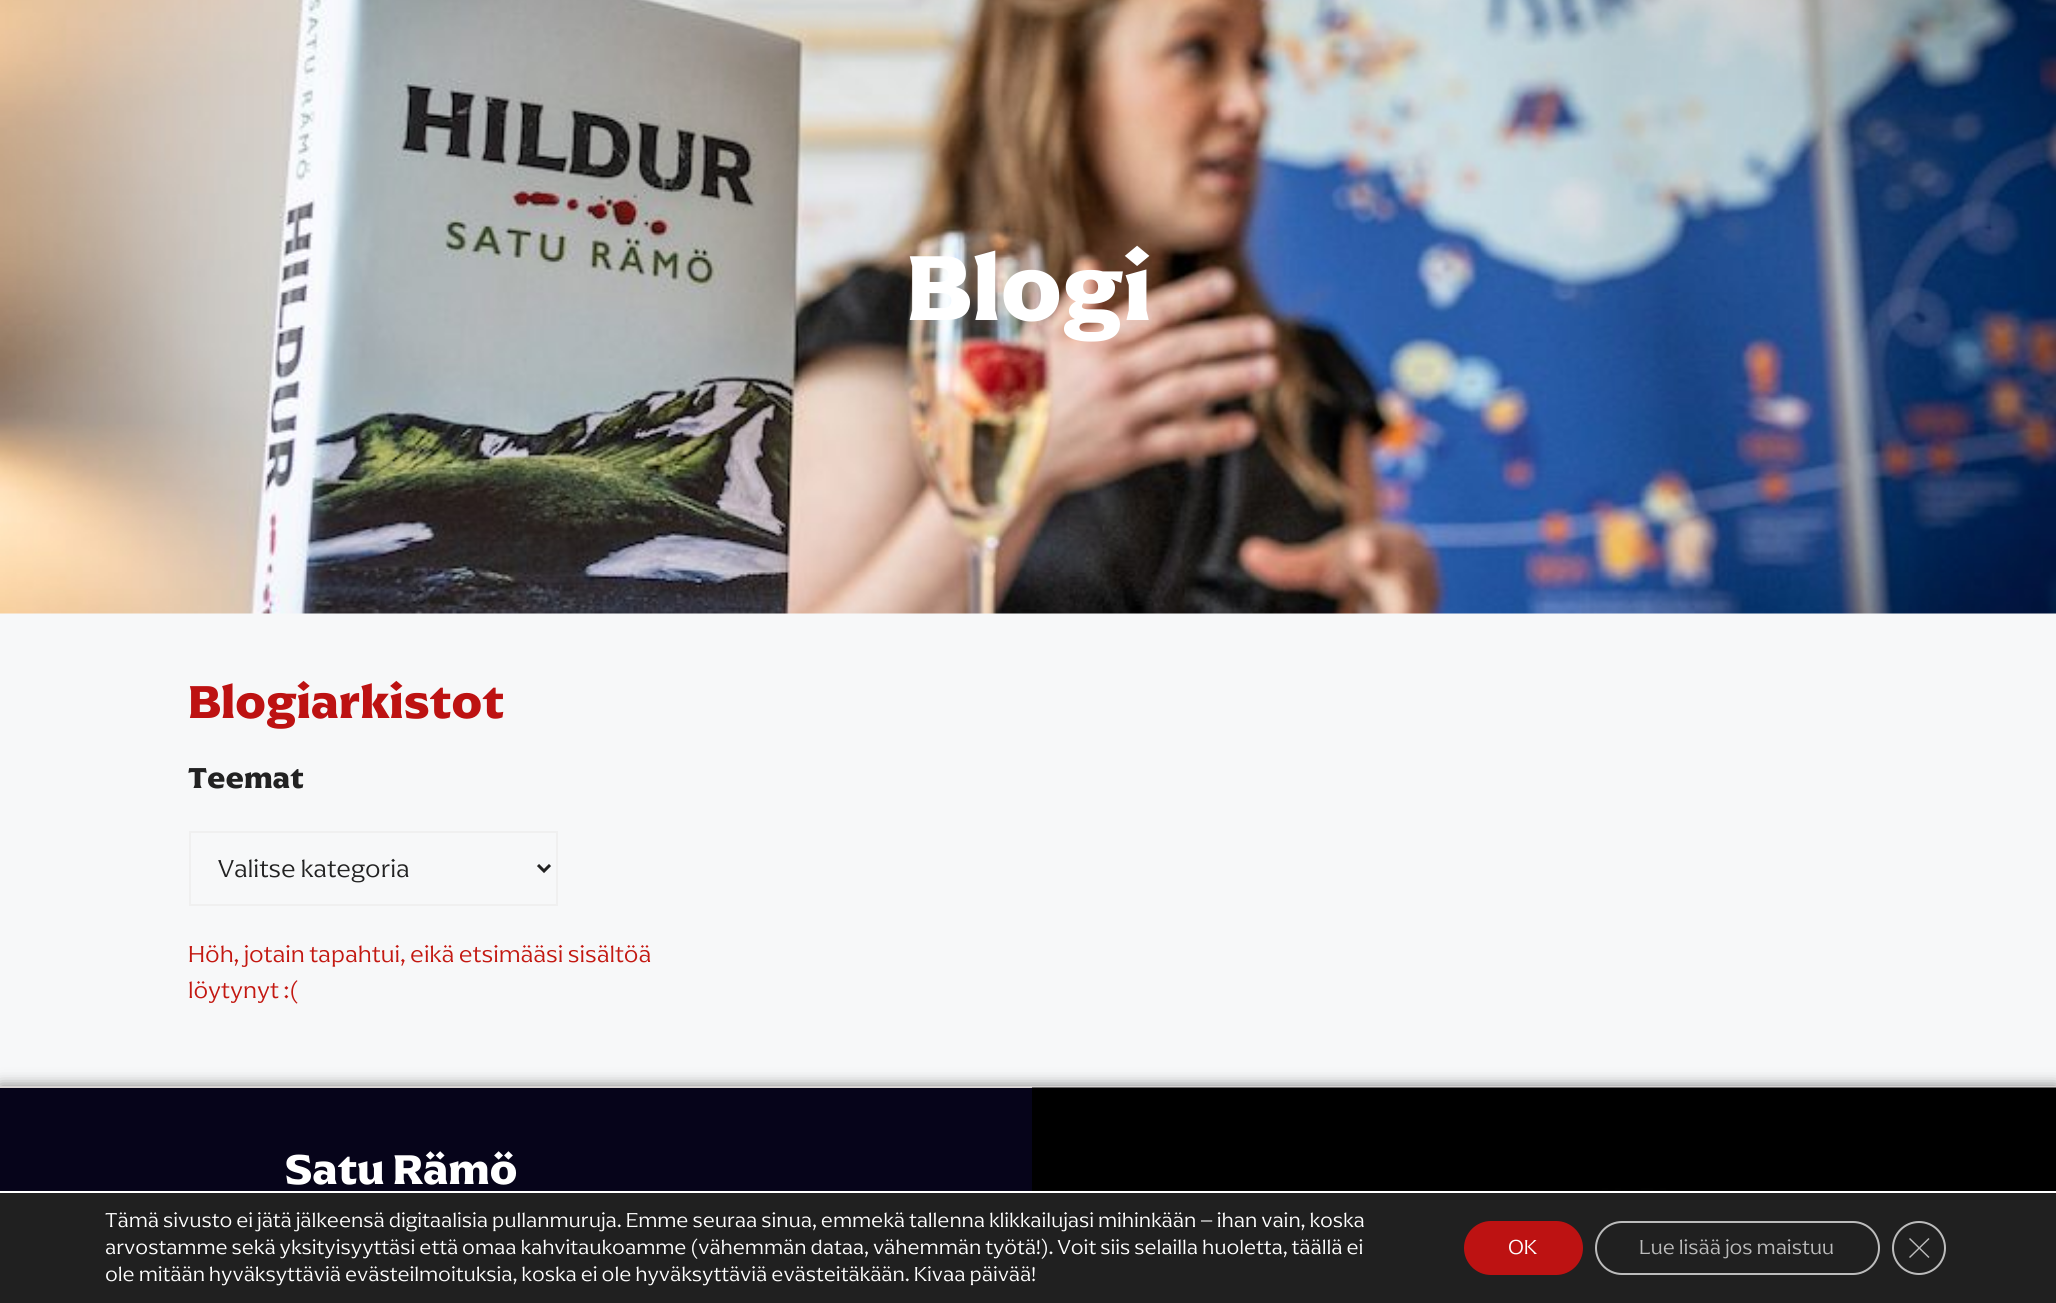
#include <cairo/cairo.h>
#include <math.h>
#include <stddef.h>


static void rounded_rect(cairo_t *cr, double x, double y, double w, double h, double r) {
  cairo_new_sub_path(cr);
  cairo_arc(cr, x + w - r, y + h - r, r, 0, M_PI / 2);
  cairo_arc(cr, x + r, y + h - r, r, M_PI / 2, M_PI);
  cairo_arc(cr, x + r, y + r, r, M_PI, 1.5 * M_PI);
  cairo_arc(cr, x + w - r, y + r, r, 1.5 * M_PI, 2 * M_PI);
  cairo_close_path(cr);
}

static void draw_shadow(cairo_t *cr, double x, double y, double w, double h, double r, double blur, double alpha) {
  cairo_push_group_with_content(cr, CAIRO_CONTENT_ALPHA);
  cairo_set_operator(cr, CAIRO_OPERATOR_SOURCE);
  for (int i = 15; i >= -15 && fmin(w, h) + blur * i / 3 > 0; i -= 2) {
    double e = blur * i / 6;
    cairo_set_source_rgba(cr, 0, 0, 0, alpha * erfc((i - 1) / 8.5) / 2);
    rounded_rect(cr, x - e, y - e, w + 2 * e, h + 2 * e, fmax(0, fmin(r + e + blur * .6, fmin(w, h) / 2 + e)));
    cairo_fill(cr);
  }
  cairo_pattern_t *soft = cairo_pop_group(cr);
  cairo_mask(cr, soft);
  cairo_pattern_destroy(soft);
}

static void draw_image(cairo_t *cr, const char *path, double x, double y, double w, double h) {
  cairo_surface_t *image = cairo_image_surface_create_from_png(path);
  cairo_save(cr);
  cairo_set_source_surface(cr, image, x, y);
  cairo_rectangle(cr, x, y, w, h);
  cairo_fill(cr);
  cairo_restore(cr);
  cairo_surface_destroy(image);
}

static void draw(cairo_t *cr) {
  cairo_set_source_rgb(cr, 247 / 255.0, 248 / 255.0, 249 / 255.0);
  cairo_paint(cr);
  draw_image(cr, "images/1.png", 0, 0, 2056, 614);
  cairo_rectangle(cr, 190, 832, 367, 73);
  cairo_set_source_rgb(cr, 240 / 255.0, 240 / 255.0, 240 / 255.0);
  cairo_stroke(cr);
  cairo_new_path(cr);
  cairo_move_to(cr, 538, 865);
  cairo_line_to(cr, 544, 871);
  cairo_line_to(cr, 550, 865);
  cairo_set_source_rgb(cr, 34 / 255.0, 34 / 255.0, 34 / 255.0);
  cairo_set_line_width(cr, 3);
  cairo_stroke(cr);
  cairo_set_source_rgb(cr, 0, 0, 0);
  draw_shadow(cr, 0, 1086, 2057, 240, 0, 7.5, 0.5);
  cairo_set_source_rgb(cr, 6 / 255.0, 4 / 255.0, 26 / 255.0);
  cairo_rectangle(cr, 0, 1088, 1032, 103);
  cairo_fill(cr);
  cairo_set_source_rgb(cr, 215 / 255.0, 210 / 255.0, 210 / 255.0);
  cairo_rectangle(cr, 0, 1086, 2056, 2);
  cairo_fill(cr);
  draw_image(cr, "images/2.png", 1032, 1087, 1024, 104);
  cairo_set_source_rgb(cr, 32 / 255.0, 32 / 255.0, 32 / 255.0);
  cairo_rectangle(cr, 0, 1193, 2056, 110);
  cairo_fill(cr);
  cairo_set_source_rgb(cr, 1, 1, 1);
  cairo_rectangle(cr, 0, 1191, 2056, 2);
  cairo_fill(cr);
  cairo_set_source_rgb(cr, 189 / 255.0, 18 / 255.0, 18 / 255.0);
  rounded_rect(cr, 1464, 1221, 119, 54, 27);
  cairo_fill(cr);
  rounded_rect(cr, 1596, 1222, 283, 52, 26);
  cairo_set_source_rgb(cr, 188 / 255.0, 188 / 255.0, 188 / 255.0);
  cairo_set_line_width(cr, 2);
  cairo_stroke(cr);
  cairo_arc(cr, 1919, 1248, 26, 0, 2 * M_PI);
  cairo_stroke(cr);
  cairo_new_path(cr);
  cairo_move_to(cr, 1928.5, 1238);
  cairo_line_to(cr, 1929.5, 1239);
  cairo_line_to(cr, 1910, 1258);
  cairo_line_to(cr, 1909, 1257);
  cairo_close_path(cr);
  cairo_fill(cr);
  cairo_new_path(cr);
  cairo_move_to(cr, 1909, 1239);
  cairo_line_to(cr, 1910, 1238);
  cairo_line_to(cr, 1929.5, 1257);
  cairo_line_to(cr, 1928.5, 1258);
  cairo_close_path(cr);
  cairo_fill(cr);
  cairo_select_font_face(cr, "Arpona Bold", CAIRO_FONT_SLANT_NORMAL, CAIRO_FONT_WEIGHT_BOLD);
  cairo_set_font_size(cr, 96);
  cairo_set_source_rgb(cr, 1, 1, 1);
  cairo_move_to(cr, 906, 320);
  cairo_show_text(cr, "Blogi");
  cairo_set_font_size(cr, 48);
  cairo_set_source_rgb(cr, 189 / 255.0, 18 / 255.0, 18 / 255.0);
  cairo_move_to(cr, 188, 718);
  cairo_show_text(cr, "Blogiarkistot");
  cairo_set_font_size(cr, 30);
  cairo_set_source_rgb(cr, 34 / 255.0, 34 / 255.0, 34 / 255.0);
  cairo_move_to(cr, 188, 788);
  cairo_show_text(cr, "Teemat");
  cairo_select_font_face(cr, "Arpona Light", CAIRO_FONT_SLANT_NORMAL, CAIRO_FONT_WEIGHT_NORMAL);
  cairo_set_font_size(cr, 25.5);
  cairo_move_to(cr, 218, 877);
  cairo_show_text(cr, "Valitse kategoria");
  cairo_set_font_size(cr, 24);
  cairo_set_source_rgb(cr, 195 / 255.0, 24 / 255.0, 17 / 255.0);
  cairo_move_to(cr, 188, 962);
  cairo_show_text(cr, "Höh, jotain tapahtui, eikä etsimääsi sisältöä");
  cairo_move_to(cr, 188, 998);
  cairo_show_text(cr, "löytynyt :(");
  cairo_select_font_face(cr, "Arpona Bold", CAIRO_FONT_SLANT_NORMAL, CAIRO_FONT_WEIGHT_BOLD);
  cairo_set_font_size(cr, 43.25);
  cairo_set_source_rgb(cr, 1, 1, 1);
  cairo_move_to(cr, 285, 1184);
  cairo_show_text(cr, "Satu Rämö");
  cairo_select_font_face(cr, "Arpona Light", CAIRO_FONT_SLANT_NORMAL, CAIRO_FONT_WEIGHT_NORMAL);
  cairo_set_font_size(cr, 21);
  cairo_move_to(cr, 105, 1227);
  cairo_show_text(cr, "Tämä sivusto ei jätä jälkeensä digitaalisia pullanmuruja. Emme seuraa sinua, emmekä tallenna klikkailujasi mihinkään – ihan vain, koska");
  cairo_move_to(cr, 105, 1254);
  cairo_show_text(cr, "arvostamme sekä yksityisyyttäsi että omaa kahvitaukoamme (vähemmän dataa, vähemmän työtä!). Voit siis selailla huoletta, täällä ei");
  cairo_move_to(cr, 105, 1281);
  cairo_show_text(cr, "ole mitään hyväksyttäviä evästeilmoituksia, koska ei ole hyväksyttäviä evästeitäkään. Kivaa päivää!");
  cairo_move_to(cr, 1508, 1254);
  cairo_show_text(cr, "OK");
  cairo_set_source_rgb(cr, 188 / 255.0, 188 / 255.0, 188 / 255.0);
  cairo_move_to(cr, 1639, 1254);
  cairo_show_text(cr, "Lue lisää jos maistuu");
}

int main(void) {
  cairo_surface_t *surface = cairo_image_surface_create(CAIRO_FORMAT_RGB24, 2056, 1303);
  cairo_t *cr = cairo_create(surface);
  cairo_font_options_t *options = cairo_font_options_create();
  cairo_font_options_set_hint_metrics(options, CAIRO_HINT_METRICS_OFF);
  cairo_font_options_set_hint_style(options, CAIRO_HINT_STYLE_NONE);
  cairo_set_font_options(cr, options);
  cairo_set_miter_limit(cr, 4);
  draw(cr);
  cairo_surface_write_to_png(surface, "out.png");
  cairo_font_options_destroy(options);
  cairo_destroy(cr);
  cairo_surface_destroy(surface);
  return 0;
}
